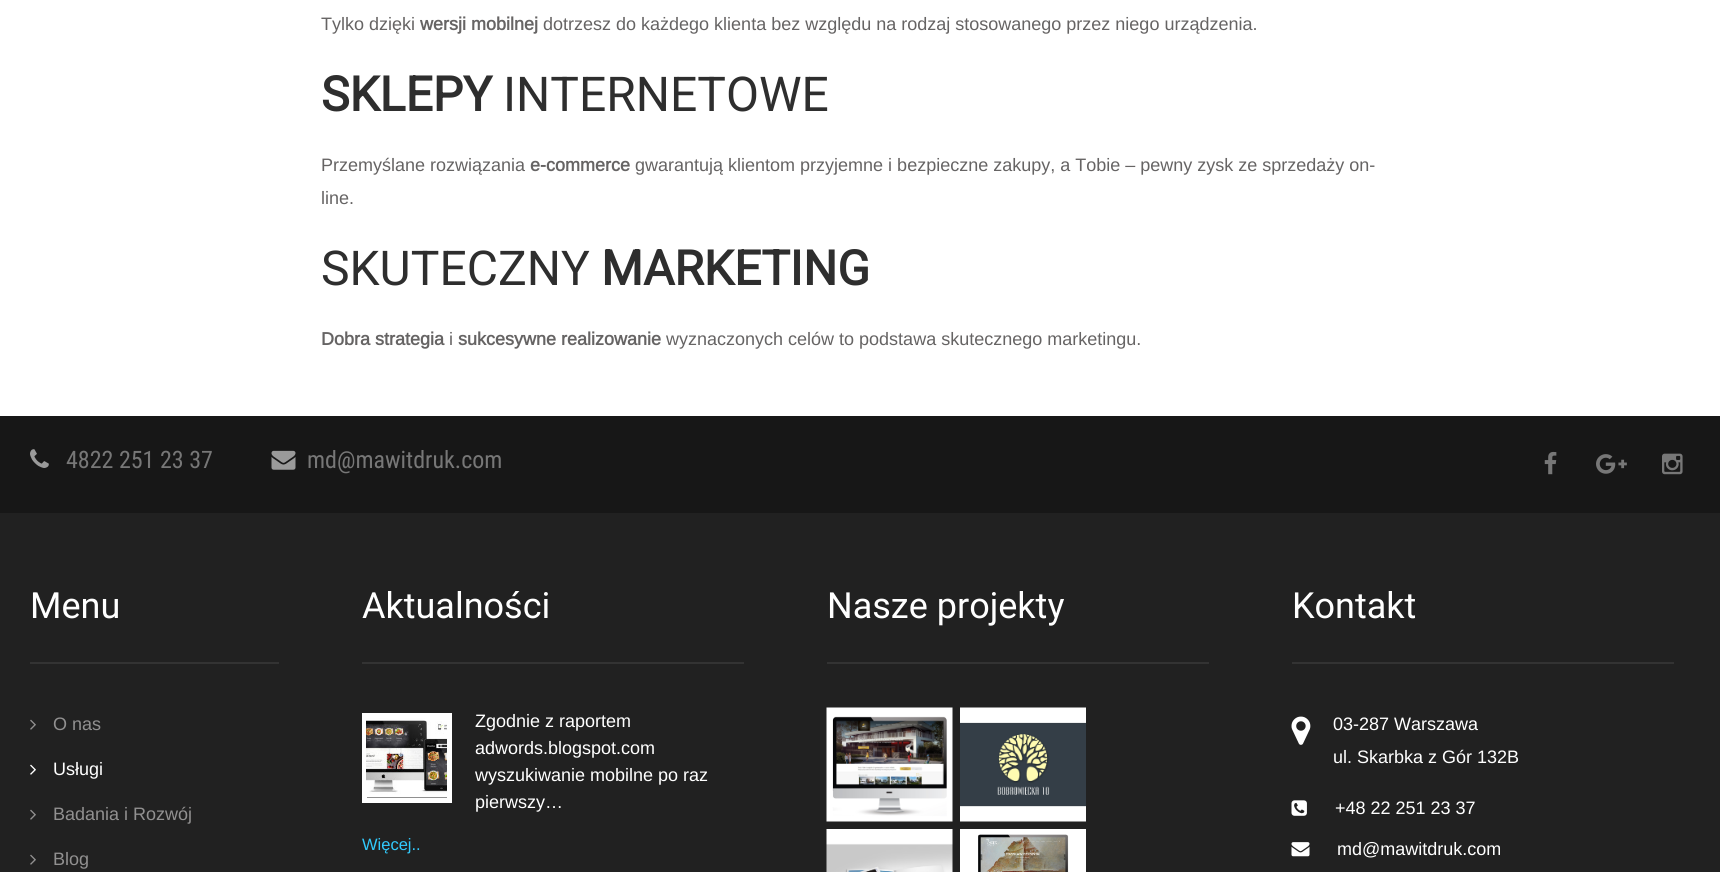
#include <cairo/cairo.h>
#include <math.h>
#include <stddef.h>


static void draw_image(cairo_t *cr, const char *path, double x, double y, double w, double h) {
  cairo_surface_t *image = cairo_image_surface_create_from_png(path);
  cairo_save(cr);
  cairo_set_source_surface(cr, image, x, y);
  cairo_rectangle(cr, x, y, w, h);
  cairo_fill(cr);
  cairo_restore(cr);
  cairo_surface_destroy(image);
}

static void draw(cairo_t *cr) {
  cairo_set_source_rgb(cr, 1, 1, 1);
  cairo_paint(cr);
  cairo_set_source_rgb(cr, 23 / 255.0, 23 / 255.0, 23 / 255.0);
  cairo_rectangle(cr, 0, 416, 1720, 97);
  cairo_fill(cr);
  draw_image(cr, "images/1.png", 30, 449, 19, 19);
  draw_image(cr, "images/2.png", 271, 450, 25, 20);
  draw_image(cr, "images/3.png", 1544, 451, 13, 24);
  draw_image(cr, "images/4.png", 1596, 454, 31, 20);
  draw_image(cr, "images/5.png", 1662, 453, 21, 22);
  cairo_set_source_rgb(cr, 33 / 255.0, 33 / 255.0, 33 / 255.0);
  cairo_rectangle(cr, 0, 513, 1720, 359);
  cairo_fill(cr);
  cairo_set_source_rgb(cr, 51 / 255.0, 51 / 255.0, 51 / 255.0);
  cairo_rectangle(cr, 30, 662, 249, 2);
  cairo_fill(cr);
  draw_image(cr, "images/6.png", 30, 719, 6, 11);
  draw_image(cr, "images/7.png", 30, 764, 6, 11);
  draw_image(cr, "images/6.png", 30, 809, 6, 11);
  draw_image(cr, "images/6.png", 30, 854, 6, 11);
  cairo_rectangle(cr, 362, 662, 382, 2);
  cairo_fill(cr);
  cairo_rectangle(cr, 364.5, 715.5, 85, 85);
  cairo_set_source_rgb(cr, 1, 1, 1);
  cairo_set_line_width(cr, 5);
  cairo_stroke(cr);
  draw_image(cr, "images/8.png", 366, 718, 81, 80);
  cairo_set_source_rgb(cr, 51 / 255.0, 51 / 255.0, 51 / 255.0);
  cairo_rectangle(cr, 827, 662, 382, 2);
  cairo_fill(cr);
  draw_image(cr, "images/9.png", 826, 707, 127, 115);
  draw_image(cr, "images/10.png", 960, 707, 126, 115);
  draw_image(cr, "images/11.png", 826, 829, 127, 43);
  draw_image(cr, "images/12.png", 960, 829, 126, 43);
  cairo_rectangle(cr, 1292, 662, 382, 2);
  cairo_fill(cr);
  draw_image(cr, "images/13.png", 1291, 716, 20, 29);
  draw_image(cr, "images/14.png", 1291, 800, 16, 16);
  draw_image(cr, "images/15.png", 1291, 842, 19, 15);
  cairo_select_font_face(cr, "Arimo", CAIRO_FONT_SLANT_NORMAL, CAIRO_FONT_WEIGHT_NORMAL);
  cairo_set_font_size(cr, 18);
  cairo_set_source_rgb(cr, 102 / 255.0, 100 / 255.0, 100 / 255.0);
  cairo_move_to(cr, 321, 30);
  cairo_show_text(cr, "Tylko dzięki");
  cairo_select_font_face(cr, "Arimo", CAIRO_FONT_SLANT_NORMAL, CAIRO_FONT_WEIGHT_BOLD);
  cairo_move_to(cr, 420, 30);
  cairo_show_text(cr, "wersji mobilnej");
  cairo_select_font_face(cr, "Arimo", CAIRO_FONT_SLANT_NORMAL, CAIRO_FONT_WEIGHT_NORMAL);
  cairo_move_to(cr, 543, 30);
  cairo_show_text(cr, "dotrzesz do każdego klienta bez względu na rodzaj stosowanego przez niego urządzenia.");
  cairo_select_font_face(cr, "Roboto", CAIRO_FONT_SLANT_NORMAL, CAIRO_FONT_WEIGHT_BOLD);
  cairo_set_font_size(cr, 48);
  cairo_set_source_rgb(cr, 46 / 255.0, 46 / 255.0, 46 / 255.0);
  cairo_move_to(cr, 321, 111);
  cairo_show_text(cr, "SKLEPY");
  cairo_select_font_face(cr, "Roboto", CAIRO_FONT_SLANT_NORMAL, CAIRO_FONT_WEIGHT_NORMAL);
  cairo_move_to(cr, 503, 111);
  cairo_show_text(cr, "INTERNETOWE");
  cairo_select_font_face(cr, "Arimo", CAIRO_FONT_SLANT_NORMAL, CAIRO_FONT_WEIGHT_NORMAL);
  cairo_set_font_size(cr, 18);
  cairo_set_source_rgb(cr, 102 / 255.0, 100 / 255.0, 100 / 255.0);
  cairo_move_to(cr, 321, 171);
  cairo_show_text(cr, "Przemyślane rozwiązania");
  cairo_select_font_face(cr, "Arimo", CAIRO_FONT_SLANT_NORMAL, CAIRO_FONT_WEIGHT_BOLD);
  cairo_move_to(cr, 530, 171);
  cairo_show_text(cr, "e-commerce");
  cairo_select_font_face(cr, "Arimo", CAIRO_FONT_SLANT_NORMAL, CAIRO_FONT_WEIGHT_NORMAL);
  cairo_move_to(cr, 635, 171);
  cairo_show_text(cr, "gwarantują klientom przyjemne i bezpieczne zakupy, a Tobie – pewny zysk ze sprzedaży on-");
  cairo_move_to(cr, 321, 204);
  cairo_show_text(cr, "line.");
  cairo_select_font_face(cr, "Roboto", CAIRO_FONT_SLANT_NORMAL, CAIRO_FONT_WEIGHT_NORMAL);
  cairo_set_font_size(cr, 48);
  cairo_set_source_rgb(cr, 46 / 255.0, 46 / 255.0, 46 / 255.0);
  cairo_move_to(cr, 321, 285);
  cairo_show_text(cr, "SKUTECZNY");
  cairo_select_font_face(cr, "Roboto", CAIRO_FONT_SLANT_NORMAL, CAIRO_FONT_WEIGHT_BOLD);
  cairo_move_to(cr, 601, 285);
  cairo_show_text(cr, "MARKETING");
  cairo_select_font_face(cr, "Arimo", CAIRO_FONT_SLANT_NORMAL, CAIRO_FONT_WEIGHT_BOLD);
  cairo_set_font_size(cr, 18);
  cairo_set_source_rgb(cr, 102 / 255.0, 100 / 255.0, 100 / 255.0);
  cairo_move_to(cr, 321, 345);
  cairo_show_text(cr, "Dobra strategia");
  cairo_select_font_face(cr, "Arimo", CAIRO_FONT_SLANT_NORMAL, CAIRO_FONT_WEIGHT_NORMAL);
  cairo_move_to(cr, 449, 345);
  cairo_show_text(cr, "i");
  cairo_select_font_face(cr, "Arimo", CAIRO_FONT_SLANT_NORMAL, CAIRO_FONT_WEIGHT_BOLD);
  cairo_move_to(cr, 458, 345);
  cairo_show_text(cr, "sukcesywne realizowanie");
  cairo_select_font_face(cr, "Arimo", CAIRO_FONT_SLANT_NORMAL, CAIRO_FONT_WEIGHT_NORMAL);
  cairo_move_to(cr, 666, 345);
  cairo_show_text(cr, "wyznaczonych celów to podstawa skutecznego marketingu.");
  cairo_select_font_face(cr, "Roboto Condensed", CAIRO_FONT_SLANT_NORMAL, CAIRO_FONT_WEIGHT_NORMAL);
  cairo_set_font_size(cr, 24);
  cairo_set_source_rgb(cr, 119 / 255.0, 119 / 255.0, 119 / 255.0);
  cairo_move_to(cr, 66, 468);
  cairo_show_text(cr, "4822 251 23 37");
  cairo_move_to(cr, 307, 468);
  cairo_show_text(cr, "md@mawitdruk.com");
  cairo_select_font_face(cr, "Roboto", CAIRO_FONT_SLANT_NORMAL, CAIRO_FONT_WEIGHT_NORMAL);
  cairo_set_font_size(cr, 36);
  cairo_set_source_rgb(cr, 1, 1, 1);
  cairo_move_to(cr, 30, 618);
  cairo_show_text(cr, "Menu");
  cairo_select_font_face(cr, "Arimo", CAIRO_FONT_SLANT_NORMAL, CAIRO_FONT_WEIGHT_NORMAL);
  cairo_set_font_size(cr, 18);
  cairo_set_source_rgb(cr, 145 / 255.0, 144 / 255.0, 144 / 255.0);
  cairo_move_to(cr, 53, 730);
  cairo_show_text(cr, "O nas");
  cairo_set_source_rgb(cr, 1, 1, 1);
  cairo_move_to(cr, 53, 775);
  cairo_show_text(cr, "Usługi");
  cairo_set_source_rgb(cr, 145 / 255.0, 144 / 255.0, 144 / 255.0);
  cairo_move_to(cr, 53, 820);
  cairo_show_text(cr, "Badania i Rozwój");
  cairo_move_to(cr, 53, 865);
  cairo_show_text(cr, "Blog");
  cairo_select_font_face(cr, "Roboto", CAIRO_FONT_SLANT_NORMAL, CAIRO_FONT_WEIGHT_NORMAL);
  cairo_set_font_size(cr, 36);
  cairo_set_source_rgb(cr, 1, 1, 1);
  cairo_move_to(cr, 362, 618);
  cairo_show_text(cr, "Aktualności");
  cairo_select_font_face(cr, "Arimo", CAIRO_FONT_SLANT_NORMAL, CAIRO_FONT_WEIGHT_NORMAL);
  cairo_set_font_size(cr, 18);
  cairo_move_to(cr, 475, 727);
  cairo_show_text(cr, "Zgodnie z raportem");
  cairo_move_to(cr, 475, 754);
  cairo_show_text(cr, "adwords.blogspot.com");
  cairo_move_to(cr, 475, 781);
  cairo_show_text(cr, "wyszukiwanie mobilne po raz");
  cairo_move_to(cr, 475, 808);
  cairo_show_text(cr, "pierwszy…");
  cairo_set_font_size(cr, 16.5);
  cairo_set_source_rgb(cr, 49 / 255.0, 202 / 255.0, 253 / 255.0);
  cairo_move_to(cr, 362, 850);
  cairo_show_text(cr, "Więcej..");
  cairo_select_font_face(cr, "Roboto", CAIRO_FONT_SLANT_NORMAL, CAIRO_FONT_WEIGHT_NORMAL);
  cairo_set_font_size(cr, 36);
  cairo_set_source_rgb(cr, 1, 1, 1);
  cairo_move_to(cr, 827, 618);
  cairo_show_text(cr, "Nasze projekty");
  cairo_move_to(cr, 1292, 618);
  cairo_show_text(cr, "Kontakt");
  cairo_select_font_face(cr, "Arimo", CAIRO_FONT_SLANT_NORMAL, CAIRO_FONT_WEIGHT_NORMAL);
  cairo_set_font_size(cr, 18);
  cairo_move_to(cr, 1333, 730);
  cairo_show_text(cr, "03-287 Warszawa");
  cairo_move_to(cr, 1333, 763);
  cairo_show_text(cr, "ul. Skarbka z Gór 132B");
  cairo_move_to(cr, 1335, 814);
  cairo_show_text(cr, "+48 22 251 23 37");
  cairo_move_to(cr, 1337, 855);
  cairo_show_text(cr, "md@mawitdruk.com");
}

int main(void) {
  cairo_surface_t *surface = cairo_image_surface_create(CAIRO_FORMAT_RGB24, 1720, 872);
  cairo_t *cr = cairo_create(surface);
  cairo_font_options_t *options = cairo_font_options_create();
  cairo_font_options_set_hint_metrics(options, CAIRO_HINT_METRICS_OFF);
  cairo_font_options_set_hint_style(options, CAIRO_HINT_STYLE_NONE);
  cairo_set_font_options(cr, options);
  cairo_set_miter_limit(cr, 4);
  draw(cr);
  cairo_surface_write_to_png(surface, "out.png");
  cairo_font_options_destroy(options);
  cairo_destroy(cr);
  cairo_surface_destroy(surface);
  return 0;
}
